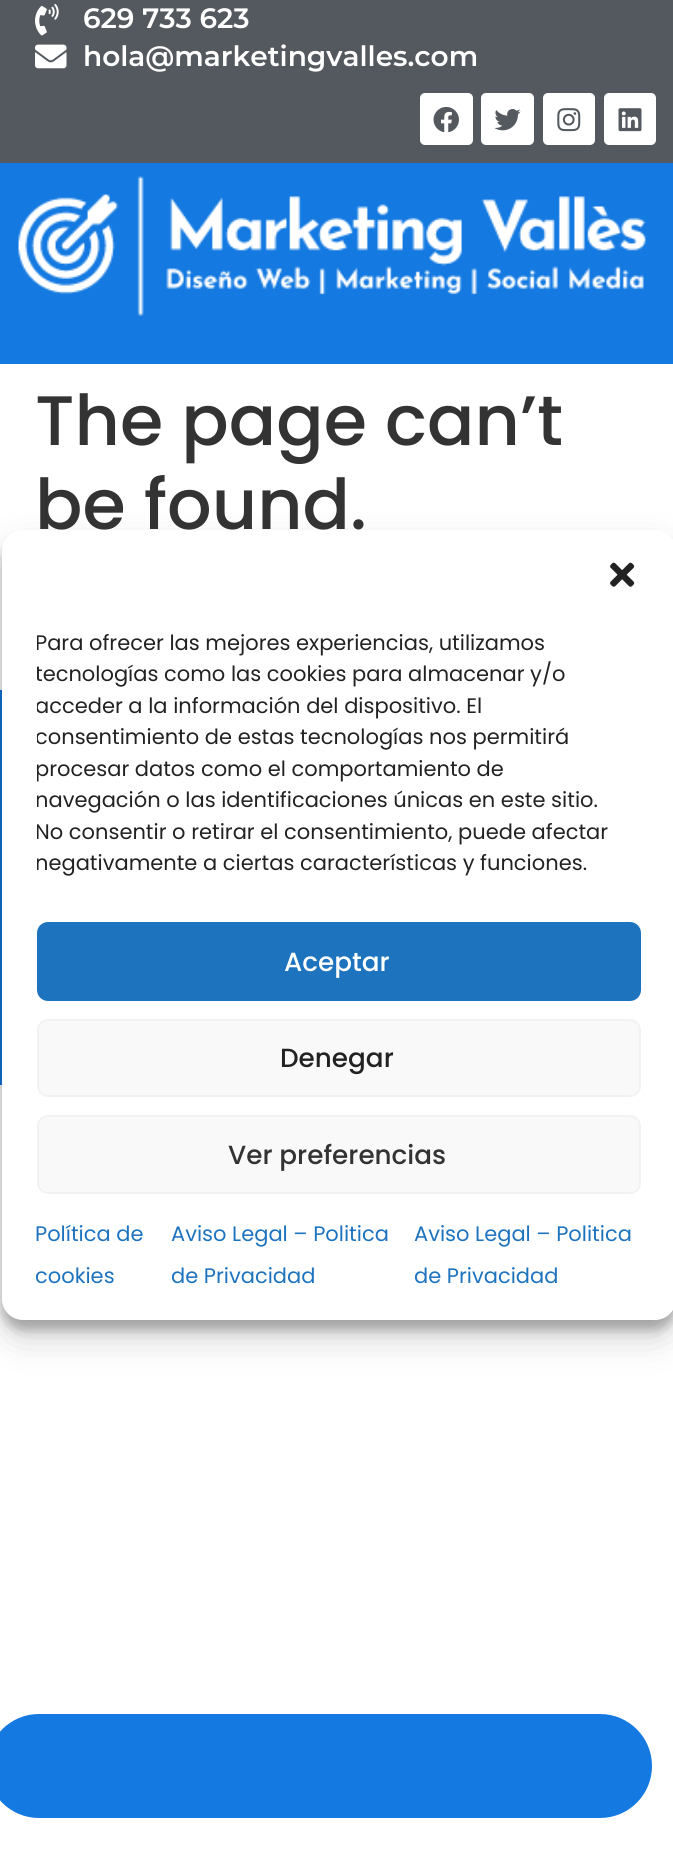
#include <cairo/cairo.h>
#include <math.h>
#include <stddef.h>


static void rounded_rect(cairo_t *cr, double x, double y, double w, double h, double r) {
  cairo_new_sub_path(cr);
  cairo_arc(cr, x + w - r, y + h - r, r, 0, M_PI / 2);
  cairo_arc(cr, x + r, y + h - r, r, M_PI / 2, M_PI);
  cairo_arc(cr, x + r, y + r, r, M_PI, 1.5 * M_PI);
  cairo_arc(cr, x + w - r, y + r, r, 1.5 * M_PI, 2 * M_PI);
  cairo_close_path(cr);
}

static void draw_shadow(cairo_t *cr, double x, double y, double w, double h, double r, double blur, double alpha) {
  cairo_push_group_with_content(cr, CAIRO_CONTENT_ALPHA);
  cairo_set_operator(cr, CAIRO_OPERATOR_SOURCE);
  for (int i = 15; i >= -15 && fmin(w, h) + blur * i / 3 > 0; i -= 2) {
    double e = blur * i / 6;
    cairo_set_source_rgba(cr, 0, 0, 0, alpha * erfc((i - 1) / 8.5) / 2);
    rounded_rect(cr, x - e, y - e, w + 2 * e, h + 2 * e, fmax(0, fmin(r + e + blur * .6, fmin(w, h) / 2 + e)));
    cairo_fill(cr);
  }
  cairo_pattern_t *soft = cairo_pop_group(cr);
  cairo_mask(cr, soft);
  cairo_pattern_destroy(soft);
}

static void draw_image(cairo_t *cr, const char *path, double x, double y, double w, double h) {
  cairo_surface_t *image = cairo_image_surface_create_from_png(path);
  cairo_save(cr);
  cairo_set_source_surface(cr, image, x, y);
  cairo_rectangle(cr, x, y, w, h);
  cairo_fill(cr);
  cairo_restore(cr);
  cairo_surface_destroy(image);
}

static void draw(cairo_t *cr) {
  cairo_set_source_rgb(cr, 1, 1, 1);
  cairo_paint(cr);
  cairo_set_source_rgb(cr, 84 / 255.0, 89 / 255.0, 95 / 255.0);
  cairo_rectangle(cr, 0, 0, 673, 163);
  cairo_fill(cr);
  draw_image(cr, "images/1.png", 35, 3, 24, 33);
  draw_image(cr, "images/2.png", 35, 44, 32, 25);
  cairo_set_source_rgb(cr, 1, 1, 1);
  rounded_rect(cr, 420, 93, 53, 52, 5);
  cairo_fill(cr);
  draw_image(cr, "images/3.png", 433, 106, 26, 27);
  rounded_rect(cr, 481, 93, 53, 52, 5);
  cairo_fill(cr);
  draw_image(cr, "images/4.png", 494, 109, 27, 22);
  rounded_rect(cr, 543, 93, 52, 52, 5);
  cairo_fill(cr);
  draw_image(cr, "images/5.png", 557, 108, 24, 24);
  rounded_rect(cr, 604, 93, 52, 52, 5);
  cairo_fill(cr);
  draw_image(cr, "images/6.png", 618, 108, 24, 24);
  cairo_set_source_rgb(cr, 20 / 255.0, 121 / 255.0, 224 / 255.0);
  cairo_rectangle(cr, 0, 163, 673, 201);
  cairo_fill(cr);
  draw_image(cr, "images/7.png", 18, 176, 628, 140);
  rounded_rect(cr, -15, 1712, 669, 108, 54);
  cairo_fill_preserve(cr);
  cairo_set_source_rgb(cr, 1, 1, 1);
  cairo_set_line_width(cr, 4);
  cairo_stroke(cr);
  cairo_set_source_rgb(cr, 20 / 255.0, 121 / 255.0, 224 / 255.0);
  cairo_rectangle(cr, 0, 690, 2, 395);
  cairo_fill(cr);
  cairo_set_source_rgb(cr, 0, 0, 0);
  draw_shadow(cr, 2, 541, 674, 789, 21, 5, 0.23);
  draw_shadow(cr, 2, 548, 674, 789, 21, 17.5, 0.19);
  cairo_set_source_rgb(cr, 1, 1, 1);
  rounded_rect(cr, 2, 530, 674, 790, 21);
  cairo_fill(cr);
  draw_image(cr, "images/8.png", 610, 562, 25, 25);
  cairo_set_source_rgb(cr, 30 / 255.0, 115 / 255.0, 190 / 255.0);
  rounded_rect(cr, 38, 923, 602, 77, 10);
  cairo_fill_preserve(cr);
  cairo_set_line_width(cr, 2);
  cairo_stroke(cr);
  cairo_set_source_rgb(cr, 249 / 255.0, 249 / 255.0, 249 / 255.0);
  rounded_rect(cr, 38, 1020, 602, 76, 10);
  cairo_fill_preserve(cr);
  cairo_set_source_rgb(cr, 242 / 255.0, 242 / 255.0, 242 / 255.0);
  cairo_stroke(cr);
  cairo_set_source_rgb(cr, 249 / 255.0, 249 / 255.0, 249 / 255.0);
  rounded_rect(cr, 38, 1116, 602, 77, 10);
  cairo_fill_preserve(cr);
  cairo_set_source_rgb(cr, 242 / 255.0, 242 / 255.0, 242 / 255.0);
  cairo_stroke(cr);
  cairo_select_font_face(cr, "Montserrat SemiBold", CAIRO_FONT_SLANT_NORMAL, CAIRO_FONT_WEIGHT_NORMAL);
  cairo_set_font_size(cr, 28);
  cairo_set_source_rgb(cr, 1, 1, 1);
  cairo_move_to(cr, 83, 28);
  cairo_show_text(cr, "629 733 623");
  cairo_move_to(cr, 83, 66);
  cairo_show_text(cr, "hola@marketingvalles.com");
  cairo_select_font_face(cr, "Poppins Medium", CAIRO_FONT_SLANT_NORMAL, CAIRO_FONT_WEIGHT_NORMAL);
  cairo_set_font_size(cr, 70);
  cairo_set_source_rgb(cr, 51 / 255.0, 51 / 255.0, 51 / 255.0);
  cairo_move_to(cr, 35, 445);
  cairo_show_text(cr, "The page can’t");
  cairo_move_to(cr, 35, 529);
  cairo_show_text(cr, "be found.");
  cairo_save(cr);
  cairo_rectangle(cr, 37, 627, 604, 260);
  cairo_clip(cr);
  cairo_select_font_face(cr, "Poppins", CAIRO_FONT_SLANT_NORMAL, CAIRO_FONT_WEIGHT_NORMAL);
  cairo_set_font_size(cr, 21);
  cairo_set_source_rgb(cr, 34 / 255.0, 34 / 255.0, 34 / 255.0);
  cairo_move_to(cr, 35, 650);
  cairo_show_text(cr, "Para ofrecer las mejores experiencias, utilizamos");
  cairo_move_to(cr, 35, 681);
  cairo_show_text(cr, "tecnologías como las cookies para almacenar y/o");
  cairo_move_to(cr, 35, 713);
  cairo_show_text(cr, "acceder a la información del dispositivo. El");
  cairo_move_to(cr, 35, 744);
  cairo_show_text(cr, "consentimiento de estas tecnologías nos permitirá");
  cairo_move_to(cr, 35, 776);
  cairo_show_text(cr, "procesar datos como el comportamiento de");
  cairo_move_to(cr, 35, 807);
  cairo_show_text(cr, "navegación o las identificaciones únicas en este sitio.");
  cairo_move_to(cr, 35, 839);
  cairo_show_text(cr, "No consentir o retirar el consentimiento, puede afectar");
  cairo_move_to(cr, 35, 870);
  cairo_show_text(cr, "negativamente a ciertas características y funciones.");
  cairo_restore(cr);
  cairo_set_font_size(cr, 26.25);
  cairo_set_source_rgb(cr, 1, 1, 1);
  cairo_move_to(cr, 284, 971);
  cairo_show_text(cr, "Aceptar");
  cairo_set_source_rgb(cr, 34 / 255.0, 34 / 255.0, 34 / 255.0);
  cairo_move_to(cr, 280, 1067);
  cairo_show_text(cr, "Denegar");
  cairo_set_source_rgb(cr, 51 / 255.0, 51 / 255.0, 51 / 255.0);
  cairo_move_to(cr, 228, 1164);
  cairo_show_text(cr, "Ver preferencias");
  cairo_select_font_face(cr, "Poppins", CAIRO_FONT_SLANT_NORMAL, CAIRO_FONT_WEIGHT_NORMAL);
  cairo_set_font_size(cr, 21);
  cairo_set_source_rgb(cr, 30 / 255.0, 115 / 255.0, 190 / 255.0);
  cairo_move_to(cr, 35, 1241);
  cairo_show_text(cr, "Política de");
  cairo_move_to(cr, 35, 1283);
  cairo_show_text(cr, "cookies");
  cairo_move_to(cr, 171, 1241);
  cairo_show_text(cr, "Aviso Legal – Politica");
  cairo_move_to(cr, 171, 1283);
  cairo_show_text(cr, "de Privacidad");
  cairo_move_to(cr, 414, 1241);
  cairo_show_text(cr, "Aviso Legal – Politica");
  cairo_move_to(cr, 414, 1283);
  cairo_show_text(cr, "de Privacidad");
}

int main(void) {
  cairo_surface_t *surface = cairo_image_surface_create(CAIRO_FORMAT_RGB24, 673, 1850);
  cairo_t *cr = cairo_create(surface);
  cairo_font_options_t *options = cairo_font_options_create();
  cairo_font_options_set_hint_metrics(options, CAIRO_HINT_METRICS_OFF);
  cairo_font_options_set_hint_style(options, CAIRO_HINT_STYLE_NONE);
  cairo_set_font_options(cr, options);
  cairo_set_miter_limit(cr, 4);
  draw(cr);
  cairo_surface_write_to_png(surface, "out.png");
  cairo_font_options_destroy(options);
  cairo_destroy(cr);
  cairo_surface_destroy(surface);
  return 0;
}
